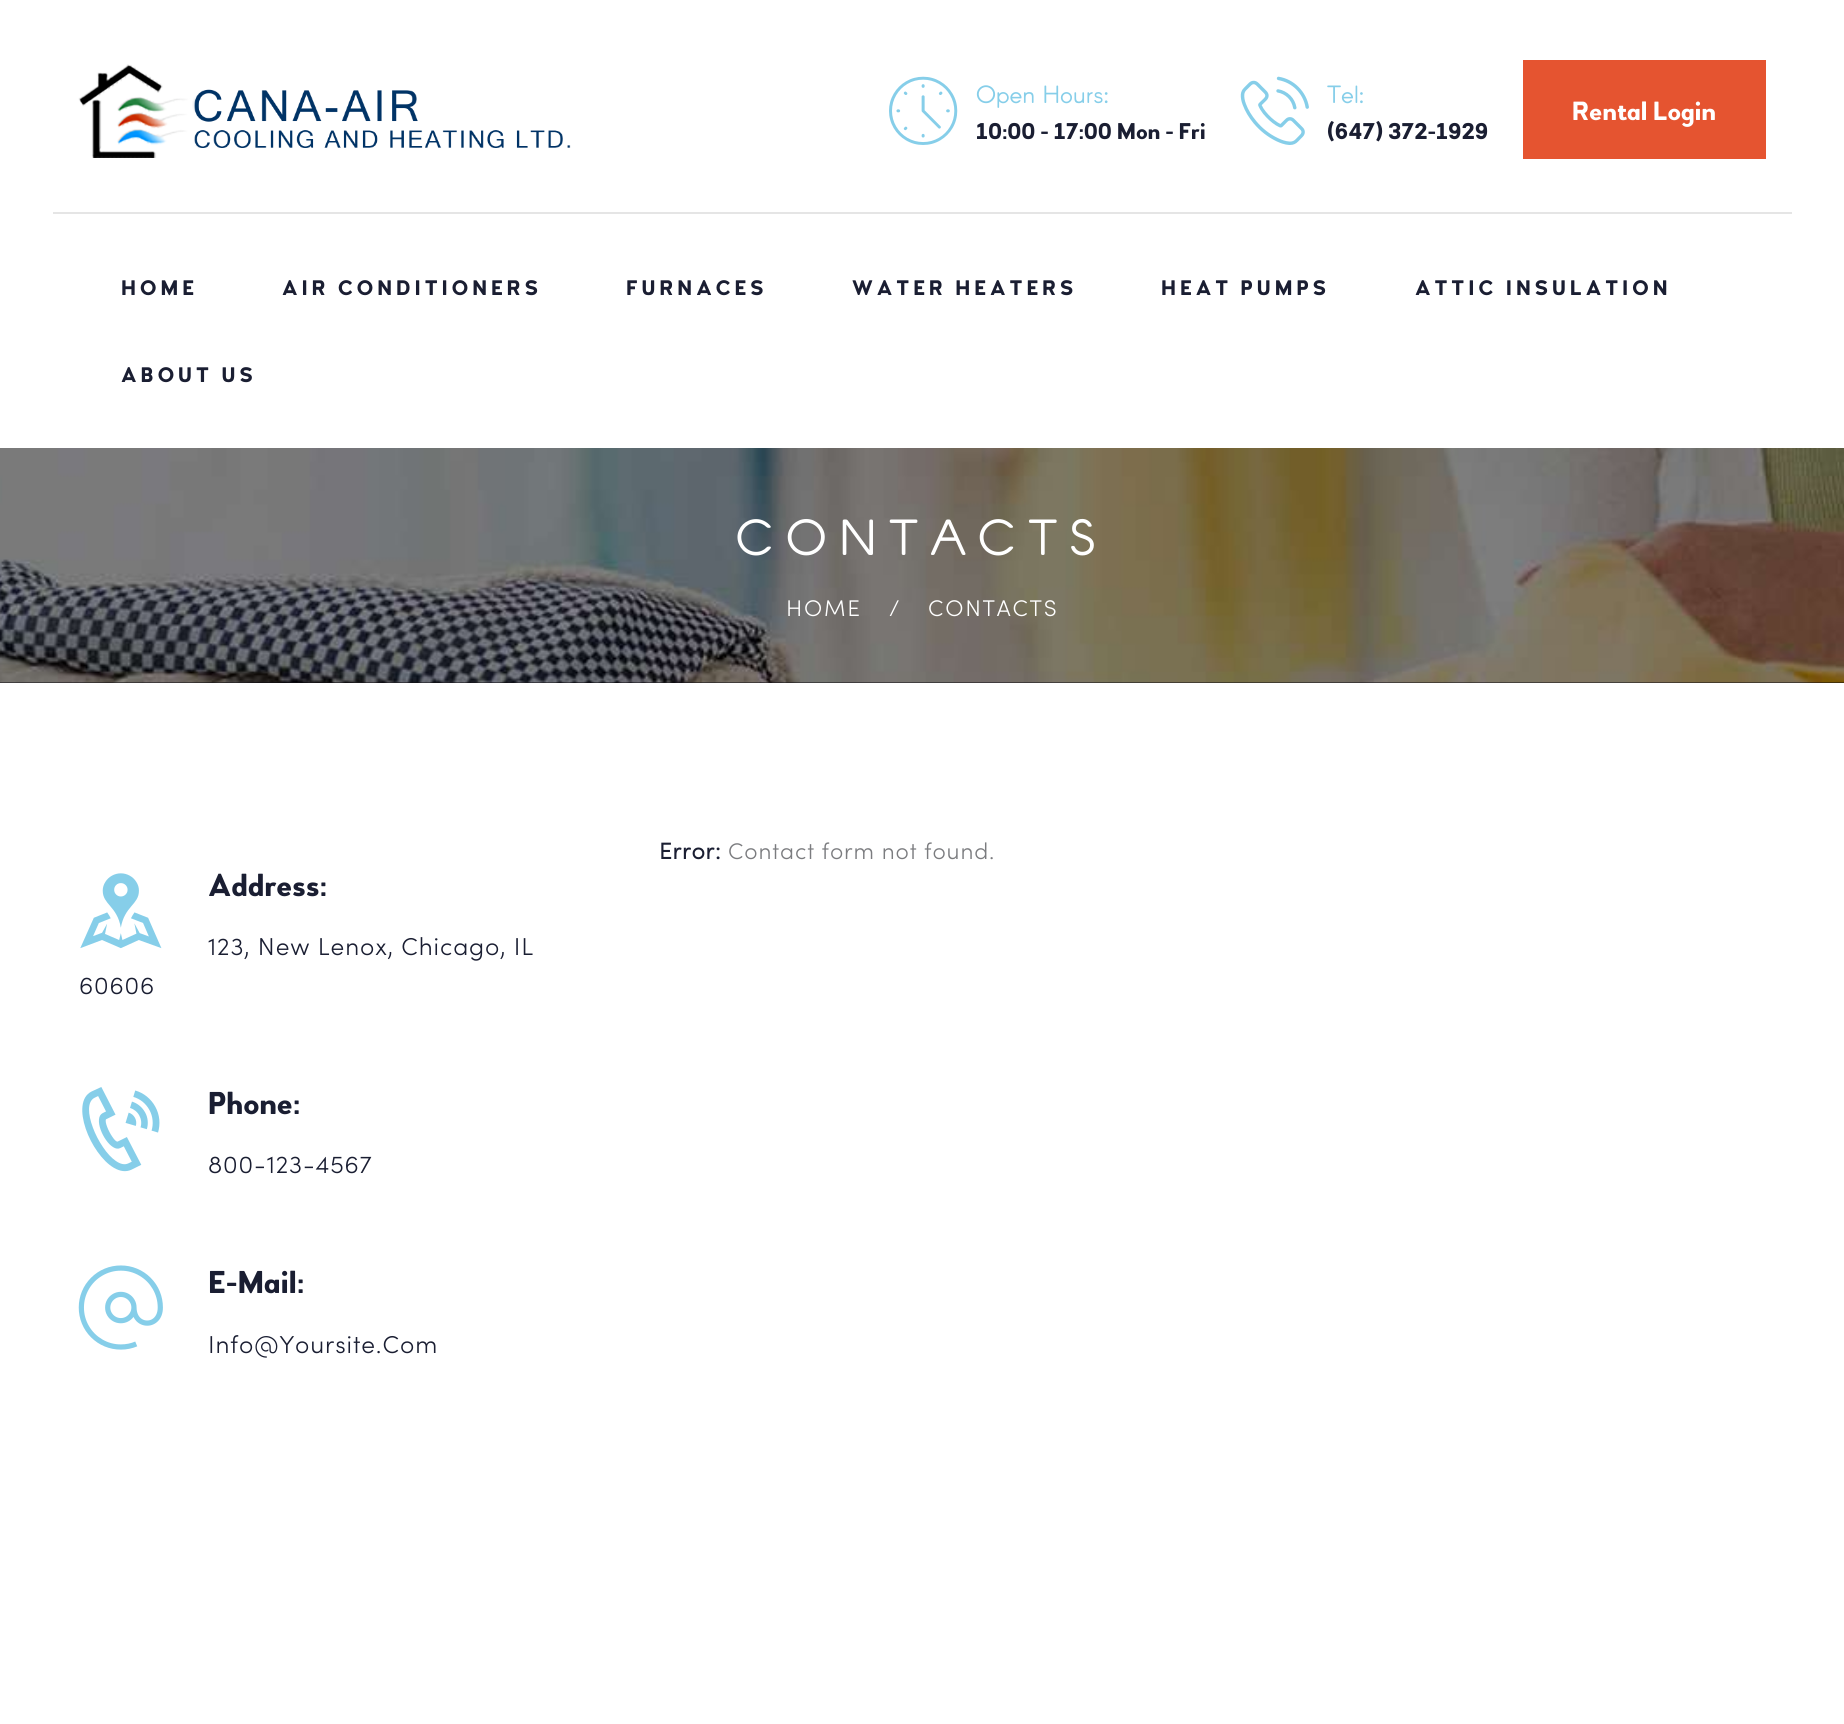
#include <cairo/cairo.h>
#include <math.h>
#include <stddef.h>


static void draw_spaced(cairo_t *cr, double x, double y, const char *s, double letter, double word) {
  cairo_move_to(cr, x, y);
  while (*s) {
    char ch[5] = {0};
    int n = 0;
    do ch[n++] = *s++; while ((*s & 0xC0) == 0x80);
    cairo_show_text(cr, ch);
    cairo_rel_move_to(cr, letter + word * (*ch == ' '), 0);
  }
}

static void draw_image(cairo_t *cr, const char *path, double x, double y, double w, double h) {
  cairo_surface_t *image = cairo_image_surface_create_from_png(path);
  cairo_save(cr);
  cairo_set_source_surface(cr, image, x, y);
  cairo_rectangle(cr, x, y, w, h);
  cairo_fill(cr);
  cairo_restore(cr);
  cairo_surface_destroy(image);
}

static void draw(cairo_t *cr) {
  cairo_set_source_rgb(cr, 1, 1, 1);
  cairo_paint(cr);
  cairo_set_source_rgb(cr, 229 / 255.0, 229 / 255.0, 229 / 255.0);
  cairo_rectangle(cr, 53, 212, 1739, 2);
  cairo_fill(cr);
  draw_image(cr, "images/1.png", 78, 64, 493, 94);
  draw_image(cr, "images/2.png", 889, 76, 69, 69);
  draw_image(cr, "images/3.png", 1240, 76, 69, 69);
  cairo_set_source_rgb(cr, 229 / 255.0, 84 / 255.0, 48 / 255.0);
  cairo_rectangle(cr, 1523, 60, 243, 99);
  cairo_fill(cr);
  cairo_set_source_rgb(cr, 14 / 255.0, 13 / 255.0, 18 / 255.0);
  cairo_rectangle(cr, 0, 682, 1844, 1);
  cairo_fill(cr);
  draw_image(cr, "images/4.png", 0, 448, 1844, 235);
  draw_image(cr, "images/5.png", 80, 873, 82, 76);
  draw_image(cr, "images/6.png", 82, 1087, 78, 85);
  draw_image(cr, "images/7.png", 78, 1265, 85, 85);
  cairo_select_font_face(cr, "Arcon", CAIRO_FONT_SLANT_NORMAL, CAIRO_FONT_WEIGHT_NORMAL);
  cairo_set_font_size(cr, 24.5);
  cairo_set_source_rgb(cr, 134 / 255.0, 206 / 255.0, 233 / 255.0);
  cairo_move_to(cr, 976, 103);
  cairo_show_text(cr, "Open Hours:");
  cairo_select_font_face(cr, "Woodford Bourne", CAIRO_FONT_SLANT_NORMAL, CAIRO_FONT_WEIGHT_BOLD);
  cairo_set_font_size(cr, 22.75);
  cairo_set_source_rgb(cr, 26 / 255.0, 30 / 255.0, 50 / 255.0);
  cairo_move_to(cr, 976, 139);
  cairo_show_text(cr, "10:00 - 17:00 Mon - Fri");
  cairo_select_font_face(cr, "Arcon", CAIRO_FONT_SLANT_NORMAL, CAIRO_FONT_WEIGHT_NORMAL);
  cairo_set_font_size(cr, 24.5);
  cairo_set_source_rgb(cr, 134 / 255.0, 206 / 255.0, 233 / 255.0);
  cairo_move_to(cr, 1327, 103);
  cairo_show_text(cr, "Tel:");
  cairo_select_font_face(cr, "Woodford Bourne", CAIRO_FONT_SLANT_NORMAL, CAIRO_FONT_WEIGHT_BOLD);
  cairo_set_font_size(cr, 22.75);
  cairo_set_source_rgb(cr, 26 / 255.0, 30 / 255.0, 50 / 255.0);
  cairo_move_to(cr, 1327, 139);
  cairo_show_text(cr, "(647) 372-1929");
  cairo_set_font_size(cr, 26.25);
  cairo_set_source_rgb(cr, 1, 1, 1);
  cairo_move_to(cr, 1572, 120);
  cairo_show_text(cr, "Rental Login");
  cairo_set_font_size(cr, 21);
  cairo_set_source_rgb(cr, 26 / 255.0, 30 / 255.0, 50 / 255.0);
  draw_spaced(cr, 121, 295, "HOME", 4, 0);
  draw_spaced(cr, 282, 295, "AIR CONDITIONERS", 4, 0);
  draw_spaced(cr, 626, 295, "FURNACES", 4, 0);
  draw_spaced(cr, 852, 295, "WATER HEATERS", 4, 0);
  draw_spaced(cr, 1161, 295, "HEAT PUMPS", 4, 0);
  draw_spaced(cr, 1415, 295, "ATTIC INSULATION", 4, 0);
  draw_spaced(cr, 121, 382, "ABOUT US", 4, 0);
  cairo_select_font_face(cr, "Arcon", CAIRO_FONT_SLANT_NORMAL, CAIRO_FONT_WEIGHT_NORMAL);
  cairo_set_font_size(cr, 49.75);
  cairo_set_source_rgb(cr, 1, 1, 1);
  draw_spaced(cr, 736, 555, "CONTACTS", 12.25, 0);
  cairo_select_font_face(cr, "Sofia Light", CAIRO_FONT_SLANT_NORMAL, CAIRO_FONT_WEIGHT_NORMAL);
  cairo_set_font_size(cr, 22.75);
  draw_spaced(cr, 786, 616, "HOME", 1.75, 0);
  draw_spaced(cr, 889, 616, "/", 0.9, 0);
  draw_spaced(cr, 928, 616, "CONTACTS", 1.75, 0);
  cairo_select_font_face(cr, "Sofia", CAIRO_FONT_SLANT_NORMAL, CAIRO_FONT_WEIGHT_BOLD);
  cairo_set_source_rgb(cr, 26 / 255.0, 30 / 255.0, 50 / 255.0);
  draw_spaced(cr, 659, 859, "Error:", 0.9, 0);
  cairo_select_font_face(cr, "Sofia Light", CAIRO_FONT_SLANT_NORMAL, CAIRO_FONT_WEIGHT_NORMAL);
  cairo_set_source_rgb(cr, 123 / 255.0, 124 / 255.0, 127 / 255.0);
  draw_spaced(cr, 728, 859, "Contact form not found.", 0.9, 0);
  cairo_select_font_face(cr, "Woodford Bourne", CAIRO_FONT_SLANT_NORMAL, CAIRO_FONT_WEIGHT_BOLD);
  cairo_set_font_size(cr, 31.5);
  cairo_set_source_rgb(cr, 26 / 255.0, 30 / 255.0, 50 / 255.0);
  cairo_move_to(cr, 208, 896);
  cairo_show_text(cr, "Address:");
  cairo_select_font_face(cr, "Sofia Light", CAIRO_FONT_SLANT_NORMAL, CAIRO_FONT_WEIGHT_NORMAL);
  cairo_set_font_size(cr, 24.5);
  draw_spaced(cr, 208, 955, "123, New Lenox, Chicago, IL", 0.9, 0);
  draw_spaced(cr, 79, 994, "60606", 0.9, 0);
  cairo_select_font_face(cr, "Woodford Bourne", CAIRO_FONT_SLANT_NORMAL, CAIRO_FONT_WEIGHT_BOLD);
  cairo_set_font_size(cr, 31.5);
  cairo_move_to(cr, 208, 1114);
  cairo_show_text(cr, "Phone:");
  cairo_select_font_face(cr, "Sofia Light", CAIRO_FONT_SLANT_NORMAL, CAIRO_FONT_WEIGHT_NORMAL);
  cairo_set_font_size(cr, 24.5);
  draw_spaced(cr, 208, 1173, "800-123-4567", 0.9, 0);
  cairo_select_font_face(cr, "Woodford Bourne", CAIRO_FONT_SLANT_NORMAL, CAIRO_FONT_WEIGHT_BOLD);
  cairo_set_font_size(cr, 31.5);
  cairo_move_to(cr, 208, 1293);
  cairo_show_text(cr, "E-Mail:");
  cairo_select_font_face(cr, "Sofia Light", CAIRO_FONT_SLANT_NORMAL, CAIRO_FONT_WEIGHT_NORMAL);
  cairo_set_font_size(cr, 24.5);
  draw_spaced(cr, 208, 1353, "Info@Yoursite.Com", 0.9, 0);
}

int main(void) {
  cairo_surface_t *surface = cairo_image_surface_create(CAIRO_FORMAT_RGB24, 1844, 1724);
  cairo_t *cr = cairo_create(surface);
  cairo_font_options_t *options = cairo_font_options_create();
  cairo_font_options_set_hint_metrics(options, CAIRO_HINT_METRICS_OFF);
  cairo_font_options_set_hint_style(options, CAIRO_HINT_STYLE_NONE);
  cairo_set_font_options(cr, options);
  cairo_set_miter_limit(cr, 4);
  draw(cr);
  cairo_surface_write_to_png(surface, "out.png");
  cairo_font_options_destroy(options);
  cairo_destroy(cr);
  cairo_surface_destroy(surface);
  return 0;
}
